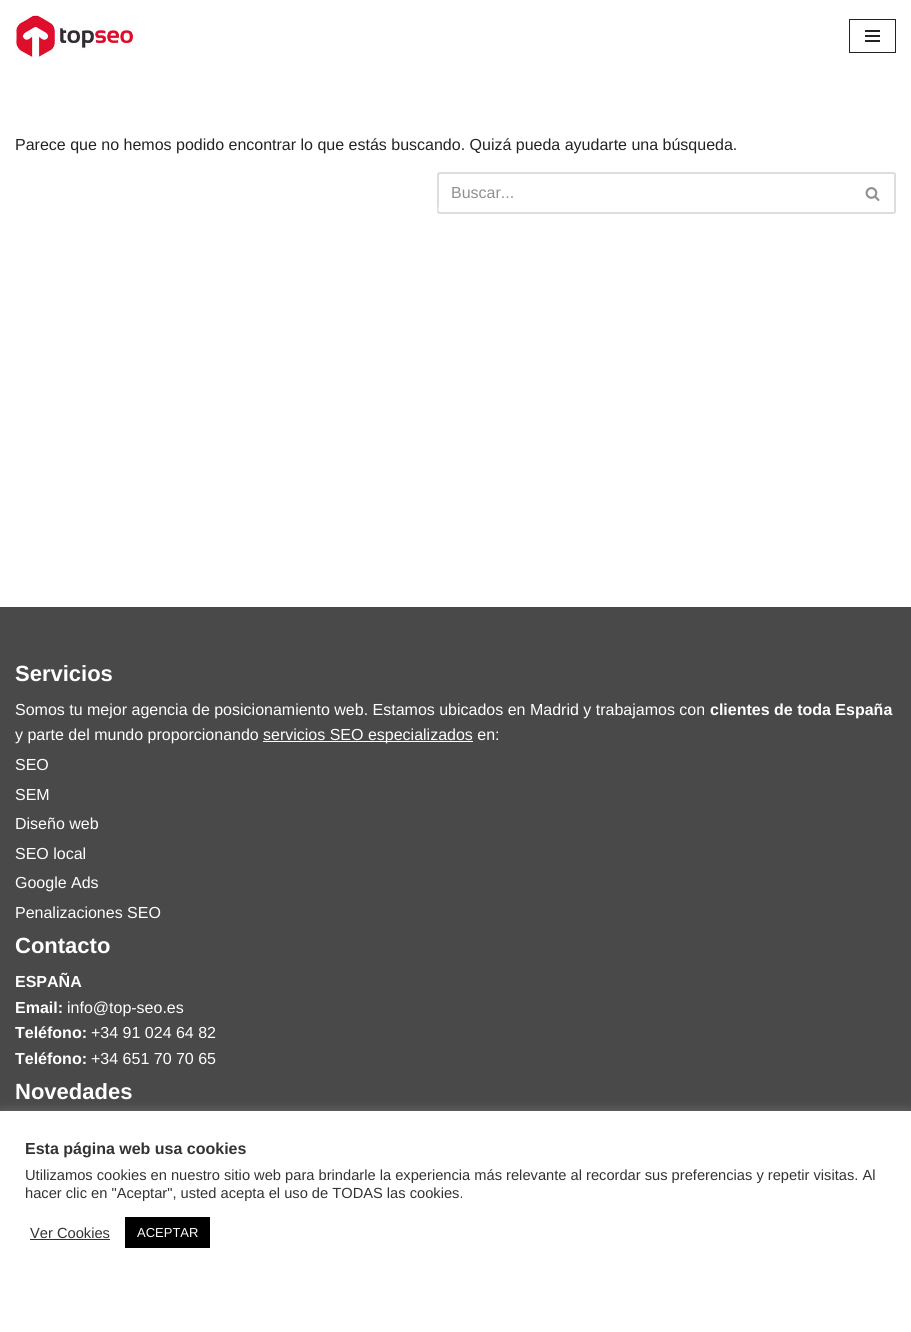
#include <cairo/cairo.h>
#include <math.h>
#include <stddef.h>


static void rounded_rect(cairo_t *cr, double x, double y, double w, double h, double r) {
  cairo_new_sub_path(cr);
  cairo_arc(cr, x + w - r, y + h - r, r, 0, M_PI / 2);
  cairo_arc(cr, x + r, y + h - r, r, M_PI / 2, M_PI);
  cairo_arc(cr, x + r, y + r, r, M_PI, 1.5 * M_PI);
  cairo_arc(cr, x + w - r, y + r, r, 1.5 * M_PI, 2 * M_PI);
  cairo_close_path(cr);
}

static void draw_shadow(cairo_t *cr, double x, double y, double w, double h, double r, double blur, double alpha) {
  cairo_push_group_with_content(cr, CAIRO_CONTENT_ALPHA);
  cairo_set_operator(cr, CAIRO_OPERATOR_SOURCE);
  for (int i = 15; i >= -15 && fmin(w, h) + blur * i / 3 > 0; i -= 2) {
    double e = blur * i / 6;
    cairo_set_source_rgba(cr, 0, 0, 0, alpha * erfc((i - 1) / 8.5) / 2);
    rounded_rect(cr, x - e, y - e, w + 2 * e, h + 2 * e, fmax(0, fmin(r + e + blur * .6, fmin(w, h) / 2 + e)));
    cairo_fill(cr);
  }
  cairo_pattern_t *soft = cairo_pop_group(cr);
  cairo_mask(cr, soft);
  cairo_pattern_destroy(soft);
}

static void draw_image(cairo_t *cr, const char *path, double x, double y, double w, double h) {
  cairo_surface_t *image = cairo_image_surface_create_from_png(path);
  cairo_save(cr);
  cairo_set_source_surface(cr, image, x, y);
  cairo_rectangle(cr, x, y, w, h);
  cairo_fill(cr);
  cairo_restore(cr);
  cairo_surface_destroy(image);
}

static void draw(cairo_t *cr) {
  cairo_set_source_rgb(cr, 1, 1, 1);
  cairo_paint(cr);
  draw_image(cr, "images/1.png", 15, 14, 119, 44);
  cairo_rectangle(cr, 849.5, 19.5, 46, 33);
  cairo_set_source_rgb(cr, 35 / 255.0, 35 / 255.0, 35 / 255.0);
  cairo_set_line_width(cr, 1);
  cairo_stroke(cr);
  cairo_rectangle(cr, 865, 30, 15, 2);
  cairo_fill(cr);
  cairo_rectangle(cr, 865, 35, 15, 2);
  cairo_fill(cr);
  cairo_rectangle(cr, 865, 40, 15, 2);
  cairo_fill(cr);
  cairo_set_source_rgb(cr, 221 / 255.0, 221 / 255.0, 221 / 255.0);
  cairo_set_fill_rule(cr, CAIRO_FILL_RULE_EVEN_ODD);
  cairo_new_path(cr);
  cairo_move_to(cr, 440, 172);
  cairo_line_to(cr, 851, 172);
  cairo_line_to(cr, 851, 214);
  cairo_line_to(cr, 440, 214);
  cairo_curve_to(cr, 438, 214, 437, 213, 437, 211);
  cairo_line_to(cr, 437, 175);
  cairo_curve_to(cr, 437, 173, 438, 172, 440, 172);
  cairo_close_path(cr);
  cairo_move_to(cr, 440, 174);
  cairo_line_to(cr, 851, 174);
  cairo_line_to(cr, 851, 212);
  cairo_line_to(cr, 440, 212);
  cairo_curve_to(cr, 437, 211, 439, 207, 439, 205);
  cairo_line_to(cr, 439, 175);
  cairo_close_path(cr);
  cairo_fill(cr);
  cairo_new_path(cr);
  cairo_move_to(cr, 851, 172);
  cairo_line_to(cr, 893, 172);
  cairo_curve_to(cr, 895, 172, 896, 173, 896, 175);
  cairo_line_to(cr, 896, 211);
  cairo_curve_to(cr, 896, 213, 895, 214, 893, 214);
  cairo_line_to(cr, 851, 214);
  cairo_close_path(cr);
  cairo_move_to(cr, 851, 174);
  cairo_line_to(cr, 893, 174);
  cairo_curve_to(cr, 894, 174, 894, 174, 894, 175);
  cairo_line_to(cr, 894, 211);
  cairo_curve_to(cr, 894, 212, 894, 212, 893, 212);
  cairo_line_to(cr, 851, 212);
  cairo_close_path(cr);
  cairo_fill(cr);
  draw_image(cr, "images/2.png", 865, 187, 15, 14);
  cairo_set_source_rgb(cr, 73 / 255.0, 73 / 255.0, 73 / 255.0);
  cairo_rectangle(cr, 0, 607, 911, 504);
  cairo_fill(cr);
  cairo_set_source_rgb(cr, 1, 1, 1);
  cairo_rectangle(cr, 263, 741, 210, 1);
  cairo_fill(cr);
  cairo_set_source_rgb(cr, 172 / 255.0, 171 / 255.0, 171 / 255.0);
  draw_shadow(cr, 0, 1110, 911, 221, 0, 5, 0.3);
  cairo_set_source_rgb(cr, 1, 1, 1);
  cairo_rectangle(cr, 0, 1111, 911, 221);
  cairo_fill(cr);
  cairo_set_source_rgb(cr, 51 / 255.0, 51 / 255.0, 51 / 255.0);
  cairo_rectangle(cr, 30, 1239, 80, 1);
  cairo_fill(cr);
  cairo_set_source_rgb(cr, 0, 0, 0);
  cairo_rectangle(cr, 125, 1217, 85, 31);
  cairo_fill(cr);
  cairo_select_font_face(cr, "Liberation Sans", CAIRO_FONT_SLANT_NORMAL, CAIRO_FONT_WEIGHT_NORMAL);
  cairo_set_font_size(cr, 16);
  cairo_set_source_rgb(cr, 35 / 255.0, 35 / 255.0, 35 / 255.0);
  cairo_move_to(cr, 15, 150);
  cairo_show_text(cr, "Parece que no hemos podido encontrar lo que estás buscando. Quizá pueda ayudarte una búsqueda.");
  cairo_set_source_rgb(cr, 145 / 255.0, 145 / 255.0, 145 / 255.0);
  cairo_move_to(cr, 451, 198);
  cairo_show_text(cr, "Buscar...");
  cairo_select_font_face(cr, "Liberation Sans", CAIRO_FONT_SLANT_NORMAL, CAIRO_FONT_WEIGHT_BOLD);
  cairo_set_font_size(cr, 22);
  cairo_set_source_rgb(cr, 1, 1, 1);
  cairo_move_to(cr, 15, 681);
  cairo_show_text(cr, "Servicios");
  cairo_select_font_face(cr, "Liberation Sans", CAIRO_FONT_SLANT_NORMAL, CAIRO_FONT_WEIGHT_NORMAL);
  cairo_set_font_size(cr, 16);
  cairo_move_to(cr, 15, 715);
  cairo_show_text(cr, "Somos tu mejor agencia de posicionamiento web. Estamos ubicados en Madrid y trabajamos con");
  cairo_select_font_face(cr, "Liberation Sans", CAIRO_FONT_SLANT_NORMAL, CAIRO_FONT_WEIGHT_BOLD);
  cairo_move_to(cr, 710, 715);
  cairo_show_text(cr, "clientes de toda España");
  cairo_select_font_face(cr, "Liberation Sans", CAIRO_FONT_SLANT_NORMAL, CAIRO_FONT_WEIGHT_NORMAL);
  cairo_move_to(cr, 15, 740);
  cairo_show_text(cr, "y parte del mundo proporcionando");
  cairo_move_to(cr, 263, 740);
  cairo_show_text(cr, "servicios SEO especializados en:");
  cairo_move_to(cr, 15, 770);
  cairo_show_text(cr, "SEO");
  cairo_move_to(cr, 15, 800);
  cairo_show_text(cr, "SEM");
  cairo_move_to(cr, 15, 829);
  cairo_show_text(cr, "Diseño web");
  cairo_move_to(cr, 15, 859);
  cairo_show_text(cr, "SEO local");
  cairo_move_to(cr, 15, 888);
  cairo_show_text(cr, "Google Ads");
  cairo_move_to(cr, 15, 918);
  cairo_show_text(cr, "Penalizaciones SEO");
  cairo_select_font_face(cr, "Liberation Sans", CAIRO_FONT_SLANT_NORMAL, CAIRO_FONT_WEIGHT_BOLD);
  cairo_set_font_size(cr, 22);
  cairo_move_to(cr, 15, 953);
  cairo_show_text(cr, "Contacto");
  cairo_set_font_size(cr, 16);
  cairo_move_to(cr, 15, 987);
  cairo_show_text(cr, "ESPAÑA");
  cairo_move_to(cr, 15, 1013);
  cairo_show_text(cr, "Email:");
  cairo_select_font_face(cr, "Liberation Sans", CAIRO_FONT_SLANT_NORMAL, CAIRO_FONT_WEIGHT_NORMAL);
  cairo_move_to(cr, 67, 1013);
  cairo_show_text(cr, "info@top-seo.es");
  cairo_select_font_face(cr, "Liberation Sans", CAIRO_FONT_SLANT_NORMAL, CAIRO_FONT_WEIGHT_BOLD);
  cairo_move_to(cr, 15, 1038);
  cairo_show_text(cr, "Teléfono:");
  cairo_select_font_face(cr, "Liberation Sans", CAIRO_FONT_SLANT_NORMAL, CAIRO_FONT_WEIGHT_NORMAL);
  cairo_move_to(cr, 91, 1038);
  cairo_show_text(cr, "+34 91 024 64 82");
  cairo_select_font_face(cr, "Liberation Sans", CAIRO_FONT_SLANT_NORMAL, CAIRO_FONT_WEIGHT_BOLD);
  cairo_move_to(cr, 15, 1064);
  cairo_show_text(cr, "Teléfono:");
  cairo_select_font_face(cr, "Liberation Sans", CAIRO_FONT_SLANT_NORMAL, CAIRO_FONT_WEIGHT_NORMAL);
  cairo_move_to(cr, 91, 1064);
  cairo_show_text(cr, "+34 651 70 70 65");
  cairo_select_font_face(cr, "Liberation Sans", CAIRO_FONT_SLANT_NORMAL, CAIRO_FONT_WEIGHT_BOLD);
  cairo_set_font_size(cr, 22);
  cairo_move_to(cr, 15, 1099);
  cairo_show_text(cr, "Novedades");
  cairo_set_font_size(cr, 16);
  cairo_set_source_rgb(cr, 51 / 255.0, 51 / 255.0, 51 / 255.0);
  cairo_move_to(cr, 25, 1154);
  cairo_show_text(cr, "Esta página web usa cookies");
  cairo_select_font_face(cr, "Liberation Sans", CAIRO_FONT_SLANT_NORMAL, CAIRO_FONT_WEIGHT_NORMAL);
  cairo_set_font_size(cr, 14.67);
  cairo_move_to(cr, 25, 1180);
  cairo_show_text(cr, "Utilizamos cookies en nuestro sitio web para brindarle la experiencia más relevante al recordar sus preferencias y repetir visitas. Al");
  cairo_move_to(cr, 25, 1198);
  cairo_show_text(cr, "hacer clic en \"Aceptar\", usted acepta el uso de TODAS las cookies.");
  cairo_move_to(cr, 30, 1238);
  cairo_show_text(cr, "Ver Cookies");
  cairo_set_font_size(cr, 13);
  cairo_set_source_rgb(cr, 1, 1, 1);
  cairo_move_to(cr, 137, 1237);
  cairo_show_text(cr, "ACEPTAR");
}

int main(void) {
  cairo_surface_t *surface = cairo_image_surface_create(CAIRO_FORMAT_RGB24, 911, 1332);
  cairo_t *cr = cairo_create(surface);
  cairo_font_options_t *options = cairo_font_options_create();
  cairo_font_options_set_hint_metrics(options, CAIRO_HINT_METRICS_OFF);
  cairo_font_options_set_hint_style(options, CAIRO_HINT_STYLE_NONE);
  cairo_set_font_options(cr, options);
  cairo_set_miter_limit(cr, 4);
  draw(cr);
  cairo_surface_write_to_png(surface, "out.png");
  cairo_font_options_destroy(options);
  cairo_destroy(cr);
  cairo_surface_destroy(surface);
  return 0;
}
